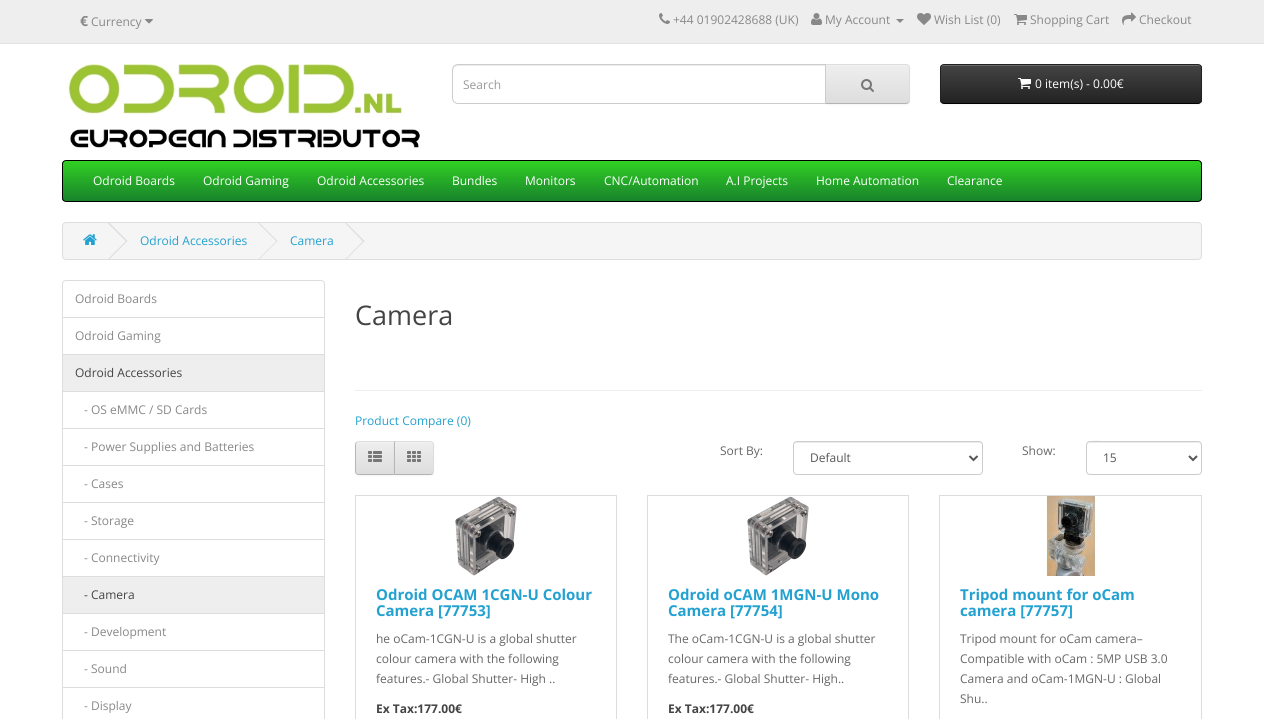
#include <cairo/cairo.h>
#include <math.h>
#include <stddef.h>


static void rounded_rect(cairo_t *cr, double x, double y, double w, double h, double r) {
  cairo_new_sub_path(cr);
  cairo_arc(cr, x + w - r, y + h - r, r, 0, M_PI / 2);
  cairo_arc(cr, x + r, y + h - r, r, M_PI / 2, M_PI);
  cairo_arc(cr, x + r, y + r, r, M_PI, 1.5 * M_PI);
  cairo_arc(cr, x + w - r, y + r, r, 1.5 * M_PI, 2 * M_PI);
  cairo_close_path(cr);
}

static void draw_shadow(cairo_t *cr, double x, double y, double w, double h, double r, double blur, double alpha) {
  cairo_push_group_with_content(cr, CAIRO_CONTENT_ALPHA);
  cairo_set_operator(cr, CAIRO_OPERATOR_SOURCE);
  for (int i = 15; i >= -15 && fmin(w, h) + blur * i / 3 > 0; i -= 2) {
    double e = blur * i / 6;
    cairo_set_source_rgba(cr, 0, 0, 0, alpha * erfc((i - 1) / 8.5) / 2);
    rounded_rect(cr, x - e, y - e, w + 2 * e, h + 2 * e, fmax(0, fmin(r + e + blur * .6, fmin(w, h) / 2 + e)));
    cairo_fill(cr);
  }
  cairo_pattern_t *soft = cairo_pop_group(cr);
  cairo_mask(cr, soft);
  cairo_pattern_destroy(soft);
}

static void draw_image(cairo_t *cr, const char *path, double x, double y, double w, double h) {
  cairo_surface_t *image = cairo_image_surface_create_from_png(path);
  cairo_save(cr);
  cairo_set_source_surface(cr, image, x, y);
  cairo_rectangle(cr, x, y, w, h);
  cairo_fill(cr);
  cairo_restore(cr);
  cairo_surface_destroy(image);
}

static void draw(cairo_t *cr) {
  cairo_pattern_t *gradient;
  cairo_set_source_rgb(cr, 1, 1, 1);
  cairo_paint(cr);
  cairo_set_source_rgb(cr, 238 / 255.0, 238 / 255.0, 238 / 255.0);
  cairo_rectangle(cr, 0, 0, 1264, 43);
  cairo_fill(cr);
  cairo_set_source_rgb(cr, 226 / 255.0, 226 / 255.0, 226 / 255.0);
  cairo_rectangle(cr, 0, 43, 1264, 1);
  cairo_fill(cr);
  draw_image(cr, "images/1.png", 145, 19, 8, 5);
  draw_image(cr, "images/2.png", 659, 13, 11, 11);
  draw_image(cr, "images/3.png", 811, 13, 11, 12);
  cairo_set_source_rgb(cr, 136 / 255.0, 136 / 255.0, 136 / 255.0);
  cairo_new_path(cr);
  cairo_move_to(cr, 896, 19);
  cairo_line_to(cr, 904, 19);
  cairo_line_to(cr, 900, 23);
  cairo_close_path(cr);
  cairo_fill(cr);
  draw_image(cr, "images/4.png", 917, 13, 14, 12);
  draw_image(cr, "images/5.png", 1014, 14, 13, 11);
  draw_image(cr, "images/6.png", 1122, 12, 14, 13);
  draw_image(cr, "images/7.png", 68, 64, 352, 84);
  cairo_set_source_rgb(cr, 0, 0, 0);
  draw_shadow(cr, 825, 65, 85, 40, 4, 1, 0.05);
  cairo_set_source_rgb(cr, 231 / 255.0, 231 / 255.0, 231 / 255.0);
  cairo_new_path(cr);
  cairo_move_to(cr, 825, 64);
  cairo_line_to(cr, 906, 64);
  cairo_curve_to(cr, 908, 64, 910, 66, 910, 68);
  cairo_line_to(cr, 910, 100);
  cairo_curve_to(cr, 910, 102, 908, 104, 906, 104);
  cairo_line_to(cr, 825, 104);
  cairo_close_path(cr);
  cairo_fill(cr);
  cairo_save(cr);
  cairo_new_path(cr);
  cairo_move_to(cr, 825, 64);
  cairo_line_to(cr, 906, 64);
  cairo_curve_to(cr, 908, 64, 910, 66, 910, 68);
  cairo_line_to(cr, 910, 100);
  cairo_curve_to(cr, 910, 102, 908, 104, 906, 104);
  cairo_line_to(cr, 825, 104);
  cairo_close_path(cr);
  cairo_clip(cr);
  gradient = cairo_pattern_create_linear(868, 65, 868, 103);
  cairo_pattern_add_color_stop_rgba(gradient, 0, 238 / 255.0, 238 / 255.0, 238 / 255.0, 1);
  cairo_pattern_add_color_stop_rgba(gradient, 1, 221 / 255.0, 221 / 255.0, 221 / 255.0, 1);
  cairo_set_source(cr, gradient);
  cairo_pattern_destroy(gradient);
  cairo_rectangle(cr, 826, 65, 84, 38);
  cairo_fill(cr);
  cairo_restore(cr);
  cairo_set_source_rgb(cr, 241 / 255.0, 241 / 255.0, 241 / 255.0);
  cairo_new_path(cr);
  cairo_move_to(cr, 826, 66);
  cairo_line_to(cr, 906, 66);
  cairo_curve_to(cr, 908, 66, 909, 67, 909, 69);
  cairo_line_to(cr, 909, 68);
  cairo_curve_to(cr, 909, 66, 908, 65, 906, 65);
  cairo_line_to(cr, 826, 65);
  cairo_close_path(cr);
  cairo_fill(cr);
  cairo_set_source_rgb(cr, 221 / 255.0, 221 / 255.0, 221 / 255.0);
  cairo_new_path(cr);
  cairo_move_to(cr, 825, 64);
  cairo_line_to(cr, 826, 65);
  cairo_line_to(cr, 907, 65);
  cairo_line_to(cr, 908, 66);
  cairo_line_to(cr, 909, 65);
  cairo_line_to(cr, 906, 64);
  cairo_close_path(cr);
  cairo_fill(cr);
  cairo_new_path(cr);
  cairo_move_to(cr, 910, 100);
  cairo_line_to(cr, 910, 68);
  cairo_curve_to(cr, 910, 67, 909.5, 66, 909, 65);
  cairo_line_to(cr, 908, 66);
  cairo_curve_to(cr, 909, 66, 909, 67, 909, 68);
  cairo_line_to(cr, 909, 100);
  cairo_curve_to(cr, 909, 101, 909, 102, 908, 102);
  cairo_line_to(cr, 909, 103);
  cairo_curve_to(cr, 909.5, 102, 910, 101, 910, 100);
  cairo_close_path(cr);
  cairo_fill(cr);
  cairo_set_source_rgb(cr, 179 / 255.0, 179 / 255.0, 179 / 255.0);
  cairo_new_path(cr);
  cairo_move_to(cr, 906, 104);
  cairo_line_to(cr, 909, 103);
  cairo_line_to(cr, 908, 102);
  cairo_line_to(cr, 907, 103);
  cairo_line_to(cr, 826, 103);
  cairo_line_to(cr, 825, 104);
  cairo_close_path(cr);
  cairo_fill(cr);
  cairo_set_source_rgb(cr, 1, 1, 1);
  cairo_new_path(cr);
  cairo_move_to(cr, 458, 64);
  cairo_line_to(cr, 826, 64);
  cairo_line_to(cr, 826, 104);
  cairo_line_to(cr, 458, 104);
  cairo_curve_to(cr, 454.5, 104, 452, 101.5, 452, 98);
  cairo_line_to(cr, 452, 70);
  cairo_curve_to(cr, 452, 66.5, 454.5, 64, 458, 64);
  cairo_close_path(cr);
  cairo_fill(cr);
  cairo_set_source_rgb(cr, 236 / 255.0, 236 / 255.0, 236 / 255.0);
  cairo_new_path(cr);
  cairo_move_to(cr, 458, 66);
  cairo_line_to(cr, 825, 66);
  cairo_line_to(cr, 825, 65);
  cairo_line_to(cr, 458, 65);
  cairo_curve_to(cr, 455, 65, 453, 67, 453, 70);
  cairo_line_to(cr, 453, 71);
  cairo_curve_to(cr, 453, 68, 455, 66, 458, 66);
  cairo_close_path(cr);
  cairo_fill(cr);
  cairo_new_path(cr);
  cairo_move_to(cr, 458, 64.5);
  cairo_line_to(cr, 825.5, 64.5);
  cairo_line_to(cr, 825.5, 103.5);
  cairo_line_to(cr, 458, 103.5);
  cairo_curve_to(cr, 455, 103.5, 452.5, 101, 452.5, 98);
  cairo_line_to(cr, 452.5, 70);
  cairo_curve_to(cr, 452.5, 67, 455, 64.5, 458, 64.5);
  cairo_close_path(cr);
  cairo_set_source_rgb(cr, 204 / 255.0, 204 / 255.0, 204 / 255.0);
  cairo_set_line_width(cr, 1);
  cairo_stroke(cr);
  draw_image(cr, "images/8.png", 861, 79, 13, 13);
  cairo_set_source_rgb(cr, 0, 0, 0);
  draw_shadow(cr, 940, 65, 262, 40, 4, 1, 0.05);
  cairo_save(cr);
  rounded_rect(cr, 940, 64, 262, 40, 4);
  cairo_clip(cr);
  gradient = cairo_pattern_create_linear(1071, 65, 1071, 103);
  cairo_pattern_add_color_stop_rgba(gradient, 0, 68 / 255.0, 68 / 255.0, 68 / 255.0, 1);
  cairo_pattern_add_color_stop_rgba(gradient, 1, 34 / 255.0, 34 / 255.0, 34 / 255.0, 1);
  cairo_set_source(cr, gradient);
  cairo_pattern_destroy(gradient);
  cairo_rectangle(cr, 940, 65, 262, 38);
  cairo_fill(cr);
  cairo_restore(cr);
  cairo_set_source_rgb(cr, 105 / 255.0, 105 / 255.0, 105 / 255.0);
  cairo_new_path(cr);
  cairo_move_to(cr, 944, 66);
  cairo_line_to(cr, 1199, 66);
  cairo_line_to(cr, 1201, 67);
  cairo_line_to(cr, 1201, 69);
  cairo_line_to(cr, 1201, 68);
  cairo_curve_to(cr, 1201, 66, 1200, 65, 1198, 65);
  cairo_line_to(cr, 944, 65);
  cairo_curve_to(cr, 942, 65, 941, 66, 941, 68);
  cairo_line_to(cr, 941, 69);
  cairo_curve_to(cr, 941, 67, 942, 66, 944, 66);
  cairo_close_path(cr);
  cairo_fill(cr);
  cairo_new_path(cr);
  cairo_move_to(cr, 1200.5, 102.5);
  cairo_curve_to(cr, 1200, 103, 1199, 103.5, 1198, 103.5);
  cairo_line_to(cr, 944, 103.5);
  cairo_curve_to(cr, 943, 103.5, 942, 103, 941.5, 102.5);
  cairo_set_source_rgb(cr, 0, 0, 0);
  cairo_stroke(cr);
  cairo_new_path(cr);
  cairo_move_to(cr, 941.5, 102.5);
  cairo_curve_to(cr, 941, 102, 940.5, 101, 940.5, 100);
  cairo_line_to(cr, 940.5, 68);
  cairo_curve_to(cr, 940.5, 67, 941, 66, 941.5, 65.5);
  cairo_curve_to(cr, 942, 65, 943, 64.5, 944, 64.5);
  cairo_line_to(cr, 1198, 64.5);
  cairo_curve_to(cr, 1199, 64.5, 1200, 65, 1200.5, 65.5);
  cairo_curve_to(cr, 1201, 66, 1201.5, 67, 1201.5, 68);
  cairo_line_to(cr, 1201.5, 100);
  cairo_curve_to(cr, 1201.5, 101, 1201, 102, 1200.5, 102.5);
  cairo_set_source_rgb(cr, 34 / 255.0, 34 / 255.0, 34 / 255.0);
  cairo_stroke(cr);
  draw_image(cr, "images/9.png", 1018, 78, 13, 11);
  cairo_save(cr);
  rounded_rect(cr, 62, 160, 1140, 42, 4);
  cairo_clip(cr);
  gradient = cairo_pattern_create_linear(632, 161, 632, 201);
  cairo_pattern_add_color_stop_rgba(gradient, 0, 49 / 255.0, 209 / 255.0, 35 / 255.0, 1);
  cairo_pattern_add_color_stop_rgba(gradient, 1, 24 / 255.0, 130 / 255.0, 44 / 255.0, 1);
  cairo_set_source(cr, gradient);
  cairo_pattern_destroy(gradient);
  cairo_rectangle(cr, 62, 161, 1140, 40);
  cairo_fill(cr);
  cairo_restore(cr);
  rounded_rect(cr, 62.5, 160.5, 1139, 41, 3.5);
  cairo_set_source_rgb(cr, 0, 0, 0);
  cairo_stroke(cr);
  cairo_set_source_rgb(cr, 245 / 255.0, 245 / 255.0, 245 / 255.0);
  rounded_rect(cr, 62.5, 222.5, 1139, 37, 3.5);
  cairo_fill_preserve(cr);
  cairo_set_source_rgb(cr, 221 / 255.0, 221 / 255.0, 221 / 255.0);
  cairo_stroke(cr);
  draw_image(cr, "images/10.png", 83, 234, 14, 11);
  cairo_new_path(cr);
  cairo_move_to(cr, 108, 223.5);
  cairo_line_to(cr, 109, 222.5);
  cairo_line_to(cr, 127.5, 241);
  cairo_line_to(cr, 126.5, 242);
  cairo_close_path(cr);
  cairo_fill(cr);
  cairo_new_path(cr);
  cairo_move_to(cr, 108, 259);
  cairo_line_to(cr, 126.5, 240.5);
  cairo_line_to(cr, 127.5, 241);
  cairo_line_to(cr, 109, 259.5);
  cairo_close_path(cr);
  cairo_fill(cr);
  cairo_new_path(cr);
  cairo_move_to(cr, 258.5, 223.5);
  cairo_line_to(cr, 259, 222.5);
  cairo_line_to(cr, 277.5, 241);
  cairo_line_to(cr, 277, 242);
  cairo_close_path(cr);
  cairo_fill(cr);
  cairo_new_path(cr);
  cairo_move_to(cr, 258.5, 259);
  cairo_line_to(cr, 277, 240.5);
  cairo_line_to(cr, 277.5, 241);
  cairo_line_to(cr, 259, 259.5);
  cairo_close_path(cr);
  cairo_fill(cr);
  cairo_new_path(cr);
  cairo_move_to(cr, 345.5, 223.5);
  cairo_line_to(cr, 346, 222.5);
  cairo_line_to(cr, 364.5, 241);
  cairo_line_to(cr, 363.5, 242);
  cairo_close_path(cr);
  cairo_fill(cr);
  cairo_new_path(cr);
  cairo_move_to(cr, 345.5, 259);
  cairo_line_to(cr, 363.5, 240.5);
  cairo_line_to(cr, 364.5, 241);
  cairo_line_to(cr, 346, 259.5);
  cairo_close_path(cr);
  cairo_fill(cr);
  cairo_new_path(cr);
  cairo_move_to(cr, 66, 280.5);
  cairo_line_to(cr, 321, 280.5);
  cairo_curve_to(cr, 323, 280.5, 324.5, 282, 324.5, 284);
  cairo_line_to(cr, 324.5, 317.5);
  cairo_line_to(cr, 62.5, 317.5);
  cairo_line_to(cr, 62.5, 284);
  cairo_curve_to(cr, 62.5, 282, 64, 280.5, 66, 280.5);
  cairo_close_path(cr);
  cairo_stroke(cr);
  cairo_rectangle(cr, 62.5, 317.5, 262, 37);
  cairo_stroke(cr);
  cairo_rectangle(cr, 62.5, 391.5, 262, 37);
  cairo_stroke(cr);
  cairo_set_source_rgb(cr, 238 / 255.0, 238 / 255.0, 238 / 255.0);
  cairo_rectangle(cr, 62.5, 354.5, 262, 37);
  cairo_fill_preserve(cr);
  cairo_set_source_rgb(cr, 221 / 255.0, 221 / 255.0, 221 / 255.0);
  cairo_stroke(cr);
  cairo_rectangle(cr, 62.5, 428.5, 262, 37);
  cairo_stroke(cr);
  cairo_rectangle(cr, 62.5, 465.5, 262, 37);
  cairo_stroke(cr);
  cairo_rectangle(cr, 62.5, 502.5, 262, 37);
  cairo_stroke(cr);
  cairo_rectangle(cr, 62.5, 539.5, 262, 37);
  cairo_stroke(cr);
  cairo_rectangle(cr, 62.5, 613.5, 262, 37);
  cairo_stroke(cr);
  cairo_set_source_rgb(cr, 238 / 255.0, 238 / 255.0, 238 / 255.0);
  cairo_rectangle(cr, 62.5, 576.5, 262, 37);
  cairo_fill_preserve(cr);
  cairo_set_source_rgb(cr, 221 / 255.0, 221 / 255.0, 221 / 255.0);
  cairo_stroke(cr);
  cairo_rectangle(cr, 62.5, 650.5, 262, 37);
  cairo_stroke(cr);
  cairo_rectangle(cr, 62.5, 687.5, 262, 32);
  cairo_stroke(cr);
  cairo_set_source_rgb(cr, 238 / 255.0, 238 / 255.0, 238 / 255.0);
  cairo_rectangle(cr, 355, 390, 847, 1);
  cairo_fill(cr);
  cairo_set_source_rgb(cr, 0, 0, 0);
  draw_shadow(cr, 355, 442, 40, 34, 4, 1, 0.05);
  cairo_save(cr);
  cairo_new_path(cr);
  cairo_move_to(cr, 359, 441);
  cairo_line_to(cr, 395, 441);
  cairo_line_to(cr, 395, 475);
  cairo_line_to(cr, 359, 475);
  cairo_curve_to(cr, 357, 475, 355, 473, 355, 471);
  cairo_line_to(cr, 355, 445);
  cairo_curve_to(cr, 355, 443, 357, 441, 359, 441);
  cairo_close_path(cr);
  cairo_clip(cr);
  gradient = cairo_pattern_create_linear(375, 442, 375, 474);
  cairo_pattern_add_color_stop_rgba(gradient, 0, 238 / 255.0, 238 / 255.0, 238 / 255.0, 1);
  cairo_pattern_add_color_stop_rgba(gradient, 1, 221 / 255.0, 221 / 255.0, 221 / 255.0, 1);
  cairo_set_source(cr, gradient);
  cairo_pattern_destroy(gradient);
  cairo_rectangle(cr, 355, 442, 39, 32);
  cairo_fill(cr);
  cairo_restore(cr);
  cairo_set_source_rgb(cr, 241 / 255.0, 241 / 255.0, 241 / 255.0);
  cairo_new_path(cr);
  cairo_move_to(cr, 359, 443);
  cairo_line_to(cr, 394, 443);
  cairo_line_to(cr, 394, 442);
  cairo_line_to(cr, 359, 442);
  cairo_curve_to(cr, 357.5, 442, 356, 443.5, 356, 445);
  cairo_line_to(cr, 356, 446);
  cairo_curve_to(cr, 356, 444, 357, 443, 359, 443);
  cairo_close_path(cr);
  cairo_fill(cr);
  cairo_set_source_rgb(cr, 221 / 255.0, 221 / 255.0, 221 / 255.0);
  cairo_new_path(cr);
  cairo_move_to(cr, 359, 441);
  cairo_curve_to(cr, 358, 441, 357, 441.5, 356, 442);
  cairo_line_to(cr, 357, 443);
  cairo_curve_to(cr, 357, 442, 358, 442, 359, 442);
  cairo_line_to(cr, 394, 442);
  cairo_line_to(cr, 395, 441);
  cairo_close_path(cr);
  cairo_fill(cr);
  cairo_set_source_rgb(cr, 179 / 255.0, 179 / 255.0, 179 / 255.0);
  cairo_new_path(cr);
  cairo_move_to(cr, 395, 475);
  cairo_line_to(cr, 394, 474);
  cairo_line_to(cr, 359, 474);
  cairo_curve_to(cr, 358, 474, 357, 474, 357, 473);
  cairo_line_to(cr, 356, 474);
  cairo_curve_to(cr, 357, 474.5, 358, 475, 359, 475);
  cairo_close_path(cr);
  cairo_fill(cr);
  cairo_set_source_rgb(cr, 183 / 255.0, 183 / 255.0, 183 / 255.0);
  cairo_new_path(cr);
  cairo_move_to(cr, 355, 445);
  cairo_line_to(cr, 355, 471);
  cairo_curve_to(cr, 355, 472, 355.5, 473, 356, 474);
  cairo_line_to(cr, 357, 473);
  cairo_curve_to(cr, 356, 473, 356, 472, 356, 471);
  cairo_line_to(cr, 356, 445);
  cairo_curve_to(cr, 356, 444, 356, 443, 357, 443);
  cairo_line_to(cr, 356, 442);
  cairo_curve_to(cr, 355.5, 443, 355, 444, 355, 445);
  cairo_close_path(cr);
  cairo_fill(cr);
  draw_image(cr, "images/11.png", 368, 451, 14, 11);
  cairo_set_source_rgb(cr, 0, 0, 0);
  draw_shadow(cr, 394, 442, 40, 34, 4, 1, 0.05);
  cairo_save(cr);
  cairo_new_path(cr);
  cairo_move_to(cr, 394, 441);
  cairo_line_to(cr, 430, 441);
  cairo_curve_to(cr, 432, 441, 434, 443, 434, 445);
  cairo_line_to(cr, 434, 471);
  cairo_curve_to(cr, 434, 473, 432, 475, 430, 475);
  cairo_line_to(cr, 394, 475);
  cairo_close_path(cr);
  cairo_clip(cr);
  gradient = cairo_pattern_create_linear(414, 442, 414, 474);
  cairo_pattern_add_color_stop_rgba(gradient, 0, 238 / 255.0, 238 / 255.0, 238 / 255.0, 1);
  cairo_pattern_add_color_stop_rgba(gradient, 1, 221 / 255.0, 221 / 255.0, 221 / 255.0, 1);
  cairo_set_source(cr, gradient);
  cairo_pattern_destroy(gradient);
  cairo_rectangle(cr, 395, 442, 39, 32);
  cairo_fill(cr);
  cairo_restore(cr);
  cairo_set_source_rgb(cr, 241 / 255.0, 241 / 255.0, 241 / 255.0);
  cairo_new_path(cr);
  cairo_move_to(cr, 395, 443);
  cairo_line_to(cr, 430, 443);
  cairo_curve_to(cr, 432, 443, 433, 444, 433, 446);
  cairo_line_to(cr, 433, 445);
  cairo_curve_to(cr, 433, 443.5, 431.5, 442, 430, 442);
  cairo_line_to(cr, 395, 442);
  cairo_close_path(cr);
  cairo_fill(cr);
  cairo_set_source_rgb(cr, 221 / 255.0, 221 / 255.0, 221 / 255.0);
  cairo_new_path(cr);
  cairo_move_to(cr, 394, 441);
  cairo_line_to(cr, 395, 442);
  cairo_line_to(cr, 430, 442);
  cairo_curve_to(cr, 431, 442, 432, 442, 432, 443);
  cairo_line_to(cr, 433, 442);
  cairo_curve_to(cr, 432, 441.5, 431, 441, 430, 441);
  cairo_close_path(cr);
  cairo_fill(cr);
  cairo_new_path(cr);
  cairo_move_to(cr, 434, 471);
  cairo_line_to(cr, 434, 445);
  cairo_curve_to(cr, 434, 444, 433.5, 443, 433, 442);
  cairo_line_to(cr, 432, 443);
  cairo_curve_to(cr, 433, 443, 433, 444, 433, 445);
  cairo_line_to(cr, 433, 471);
  cairo_curve_to(cr, 433, 472, 433, 473, 432, 473);
  cairo_line_to(cr, 433, 474);
  cairo_curve_to(cr, 433.5, 473, 434, 472, 434, 471);
  cairo_close_path(cr);
  cairo_fill(cr);
  cairo_set_source_rgb(cr, 179 / 255.0, 179 / 255.0, 179 / 255.0);
  cairo_new_path(cr);
  cairo_move_to(cr, 430, 475);
  cairo_curve_to(cr, 431, 475, 432, 474.5, 433, 474);
  cairo_line_to(cr, 432, 473);
  cairo_curve_to(cr, 432, 474, 431, 474, 430, 474);
  cairo_line_to(cr, 395, 474);
  cairo_line_to(cr, 394, 475);
  cairo_close_path(cr);
  cairo_fill(cr);
  cairo_set_source_rgb(cr, 183 / 255.0, 183 / 255.0, 183 / 255.0);
  cairo_new_path(cr);
  cairo_move_to(cr, 394, 441);
  cairo_line_to(cr, 394, 475);
  cairo_line_to(cr, 395, 474);
  cairo_line_to(cr, 395, 442);
  cairo_close_path(cr);
  cairo_fill(cr);
  draw_image(cr, "images/12.png", 407, 451, 14, 11);
  cairo_set_source_rgb(cr, 236 / 255.0, 236 / 255.0, 236 / 255.0);
  cairo_new_path(cr);
  cairo_move_to(cr, 797, 443);
  cairo_line_to(cr, 979, 443);
  cairo_curve_to(cr, 981, 443, 982, 444, 982, 446);
  cairo_curve_to(cr, 982, 444, 981, 442, 979, 442);
  cairo_line_to(cr, 797, 442);
  cairo_curve_to(cr, 795, 442, 794, 444, 794, 446);
  cairo_curve_to(cr, 794, 444, 795, 443, 797, 443);
  cairo_close_path(cr);
  cairo_fill(cr);
  rounded_rect(cr, 793.5, 441.5, 189, 33, 3.5);
  cairo_set_source_rgb(cr, 204 / 255.0, 204 / 255.0, 204 / 255.0);
  cairo_stroke(cr);
  cairo_new_path(cr);
  cairo_move_to(cr, 969.5, 456);
  cairo_line_to(cr, 973.5, 460);
  cairo_line_to(cr, 977.5, 456);
  cairo_set_source_rgb(cr, 85 / 255.0, 85 / 255.0, 85 / 255.0);
  cairo_set_line_width(cr, 2);
  cairo_stroke(cr);
  cairo_set_source_rgb(cr, 236 / 255.0, 236 / 255.0, 236 / 255.0);
  cairo_new_path(cr);
  cairo_move_to(cr, 1090, 443);
  cairo_line_to(cr, 1198, 443);
  cairo_curve_to(cr, 1200, 443, 1201, 444, 1201, 446);
  cairo_curve_to(cr, 1201, 444, 1200, 442, 1198, 442);
  cairo_line_to(cr, 1108, 442);
  cairo_curve_to(cr, 1106, 442, 1087, 437, 1087, 446);
  cairo_curve_to(cr, 1087, 444, 1088, 443, 1090, 443);
  cairo_close_path(cr);
  cairo_fill(cr);
  rounded_rect(cr, 1086.5, 441.5, 115, 33, 3.5);
  cairo_set_source_rgb(cr, 204 / 255.0, 204 / 255.0, 204 / 255.0);
  cairo_set_line_width(cr, 1);
  cairo_stroke(cr);
  cairo_new_path(cr);
  cairo_move_to(cr, 1189, 456);
  cairo_line_to(cr, 1193, 460);
  cairo_line_to(cr, 1197, 456);
  cairo_set_source_rgb(cr, 85 / 255.0, 85 / 255.0, 85 / 255.0);
  cairo_set_line_width(cr, 2);
  cairo_stroke(cr);
  cairo_rectangle(cr, 355.5, 495.5, 261, 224);
  cairo_set_source_rgb(cr, 221 / 255.0, 221 / 255.0, 221 / 255.0);
  cairo_set_line_width(cr, 1);
  cairo_stroke(cr);
  draw_image(cr, "images/13.png", 455, 496, 62, 80);
  cairo_rectangle(cr, 647.5, 495.5, 261, 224);
  cairo_stroke(cr);
  draw_image(cr, "images/13.png", 747, 496, 62, 80);
  cairo_rectangle(cr, 939.5, 495.5, 262, 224);
  cairo_stroke(cr);
  draw_image(cr, "images/14.png", 1046, 496, 50, 80);
  cairo_select_font_face(cr, "Open Sans", CAIRO_FONT_SLANT_NORMAL, CAIRO_FONT_WEIGHT_BOLD);
  cairo_set_font_size(cr, 14);
  cairo_set_source_rgb(cr, 136 / 255.0, 136 / 255.0, 136 / 255.0);
  cairo_move_to(cr, 80, 26);
  cairo_show_text(cr, "€");
  cairo_select_font_face(cr, "Open Sans", CAIRO_FONT_SLANT_NORMAL, CAIRO_FONT_WEIGHT_NORMAL);
  cairo_set_font_size(cr, 12);
  cairo_move_to(cr, 91, 26);
  cairo_show_text(cr, "Currency");
  cairo_move_to(cr, 673, 24);
  cairo_show_text(cr, "+44 01902428688 (UK)");
  cairo_move_to(cr, 825, 24);
  cairo_show_text(cr, "My Account");
  cairo_move_to(cr, 934, 24);
  cairo_show_text(cr, "Wish List (0)");
  cairo_move_to(cr, 1030, 24);
  cairo_show_text(cr, "Shopping Cart");
  cairo_move_to(cr, 1139, 24);
  cairo_show_text(cr, "Checkout");
  cairo_set_source_rgb(cr, 153 / 255.0, 153 / 255.0, 153 / 255.0);
  cairo_move_to(cr, 463, 89);
  cairo_show_text(cr, "Search");
  cairo_set_source_rgb(cr, 1, 1, 1);
  cairo_move_to(cr, 1035, 88);
  cairo_show_text(cr, "0 item(s) - 0.00€");
  cairo_move_to(cr, 93, 185);
  cairo_show_text(cr, "Odroid Boards");
  cairo_move_to(cr, 203, 185);
  cairo_show_text(cr, "Odroid Gaming");
  cairo_move_to(cr, 317, 185);
  cairo_show_text(cr, "Odroid Accessories");
  cairo_move_to(cr, 452, 185);
  cairo_show_text(cr, "Bundles");
  cairo_move_to(cr, 525, 185);
  cairo_show_text(cr, "Monitors");
  cairo_move_to(cr, 604, 185);
  cairo_show_text(cr, "CNC/Automation");
  cairo_move_to(cr, 726, 185);
  cairo_show_text(cr, "A.I Projects");
  cairo_move_to(cr, 816, 185);
  cairo_show_text(cr, "Home Automation");
  cairo_move_to(cr, 947, 185);
  cairo_show_text(cr, "Clearance");
  cairo_set_source_rgb(cr, 35 / 255.0, 161 / 255.0, 209 / 255.0);
  cairo_move_to(cr, 140, 245);
  cairo_show_text(cr, "Odroid Accessories");
  cairo_move_to(cr, 290, 245);
  cairo_show_text(cr, "Camera");
  cairo_set_source_rgb(cr, 136 / 255.0, 136 / 255.0, 136 / 255.0);
  cairo_move_to(cr, 75, 303);
  cairo_show_text(cr, "Odroid Boards");
  cairo_move_to(cr, 75, 340);
  cairo_show_text(cr, "Odroid Gaming");
  cairo_set_source_rgb(cr, 68 / 255.0, 68 / 255.0, 68 / 255.0);
  cairo_move_to(cr, 75, 377);
  cairo_show_text(cr, "Odroid Accessories");
  cairo_set_source_rgb(cr, 136 / 255.0, 136 / 255.0, 136 / 255.0);
  cairo_move_to(cr, 84, 414);
  cairo_show_text(cr, "- OS eMMC / SD Cards");
  cairo_move_to(cr, 84, 451);
  cairo_show_text(cr, "- Power Supplies and Batteries");
  cairo_move_to(cr, 84, 488);
  cairo_show_text(cr, "- Cases");
  cairo_move_to(cr, 84, 525);
  cairo_show_text(cr, "- Storage");
  cairo_move_to(cr, 84, 562);
  cairo_show_text(cr, "- Connectivity");
  cairo_set_source_rgb(cr, 68 / 255.0, 68 / 255.0, 68 / 255.0);
  cairo_move_to(cr, 84, 599);
  cairo_show_text(cr, "- Camera");
  cairo_set_source_rgb(cr, 136 / 255.0, 136 / 255.0, 136 / 255.0);
  cairo_move_to(cr, 84, 636);
  cairo_show_text(cr, "- Development");
  cairo_move_to(cr, 84, 673);
  cairo_show_text(cr, "- Sound");
  cairo_move_to(cr, 84, 710);
  cairo_show_text(cr, "- Display");
  cairo_set_font_size(cr, 27);
  cairo_set_source_rgb(cr, 68 / 255.0, 68 / 255.0, 68 / 255.0);
  cairo_move_to(cr, 355, 325);
  cairo_show_text(cr, "Camera");
  cairo_set_font_size(cr, 12);
  cairo_set_source_rgb(cr, 35 / 255.0, 161 / 255.0, 209 / 255.0);
  cairo_move_to(cr, 355, 425);
  cairo_show_text(cr, "Product Compare (0)");
  cairo_set_source_rgb(cr, 102 / 255.0, 102 / 255.0, 102 / 255.0);
  cairo_move_to(cr, 720, 455);
  cairo_show_text(cr, "Sort By:");
  cairo_set_source_rgb(cr, 85 / 255.0, 85 / 255.0, 85 / 255.0);
  cairo_move_to(cr, 810, 462);
  cairo_show_text(cr, "Default");
  cairo_set_source_rgb(cr, 102 / 255.0, 102 / 255.0, 102 / 255.0);
  cairo_move_to(cr, 1022, 455);
  cairo_show_text(cr, "Show:");
  cairo_set_source_rgb(cr, 85 / 255.0, 85 / 255.0, 85 / 255.0);
  cairo_move_to(cr, 1103, 462);
  cairo_show_text(cr, "15");
  cairo_select_font_face(cr, "Open Sans", CAIRO_FONT_SLANT_NORMAL, CAIRO_FONT_WEIGHT_BOLD);
  cairo_set_font_size(cr, 15);
  cairo_set_source_rgb(cr, 35 / 255.0, 161 / 255.0, 209 / 255.0);
  cairo_move_to(cr, 376, 600);
  cairo_show_text(cr, "Odroid OCAM 1CGN-U Colour");
  cairo_move_to(cr, 376, 616);
  cairo_show_text(cr, "Camera [77753]");
  cairo_select_font_face(cr, "Open Sans", CAIRO_FONT_SLANT_NORMAL, CAIRO_FONT_WEIGHT_NORMAL);
  cairo_set_font_size(cr, 12);
  cairo_set_source_rgb(cr, 102 / 255.0, 102 / 255.0, 102 / 255.0);
  cairo_move_to(cr, 376, 643);
  cairo_show_text(cr, "he oCam-1CGN-U is a global shutter");
  cairo_move_to(cr, 376, 663);
  cairo_show_text(cr, "colour camera with the following");
  cairo_move_to(cr, 376, 683);
  cairo_show_text(cr, "features.- Global Shutter- High ..");
  cairo_select_font_face(cr, "Open Sans", CAIRO_FONT_SLANT_NORMAL, CAIRO_FONT_WEIGHT_BOLD);
  cairo_set_source_rgb(cr, 68 / 255.0, 68 / 255.0, 68 / 255.0);
  cairo_move_to(cr, 376, 713);
  cairo_show_text(cr, "Ex Tax:177.00€");
  cairo_set_font_size(cr, 15);
  cairo_set_source_rgb(cr, 35 / 255.0, 161 / 255.0, 209 / 255.0);
  cairo_move_to(cr, 668, 600);
  cairo_show_text(cr, "Odroid oCAM 1MGN-U Mono");
  cairo_move_to(cr, 668, 616);
  cairo_show_text(cr, "Camera [77754]");
  cairo_select_font_face(cr, "Open Sans", CAIRO_FONT_SLANT_NORMAL, CAIRO_FONT_WEIGHT_NORMAL);
  cairo_set_font_size(cr, 12);
  cairo_set_source_rgb(cr, 102 / 255.0, 102 / 255.0, 102 / 255.0);
  cairo_move_to(cr, 668, 643);
  cairo_show_text(cr, "The oCam-1CGN-U is a global shutter");
  cairo_move_to(cr, 668, 663);
  cairo_show_text(cr, "colour camera with the following");
  cairo_move_to(cr, 668, 683);
  cairo_show_text(cr, "features.- Global Shutter- High..");
  cairo_select_font_face(cr, "Open Sans", CAIRO_FONT_SLANT_NORMAL, CAIRO_FONT_WEIGHT_BOLD);
  cairo_set_source_rgb(cr, 68 / 255.0, 68 / 255.0, 68 / 255.0);
  cairo_move_to(cr, 668, 713);
  cairo_show_text(cr, "Ex Tax:177.00€");
  cairo_set_font_size(cr, 15);
  cairo_set_source_rgb(cr, 35 / 255.0, 161 / 255.0, 209 / 255.0);
  cairo_move_to(cr, 960, 600);
  cairo_show_text(cr, "Tripod mount for oCam");
  cairo_move_to(cr, 960, 616);
  cairo_show_text(cr, "camera [77757]");
  cairo_select_font_face(cr, "Open Sans", CAIRO_FONT_SLANT_NORMAL, CAIRO_FONT_WEIGHT_NORMAL);
  cairo_set_font_size(cr, 12);
  cairo_set_source_rgb(cr, 102 / 255.0, 102 / 255.0, 102 / 255.0);
  cairo_move_to(cr, 960, 643);
  cairo_show_text(cr, "Tripod mount for oCam camera–");
  cairo_move_to(cr, 960, 663);
  cairo_show_text(cr, "Compatible with oCam : 5MP USB 3.0");
  cairo_move_to(cr, 960, 683);
  cairo_show_text(cr, "Camera and oCam-1MGN-U : Global");
  cairo_move_to(cr, 960, 703);
  cairo_show_text(cr, "Shu..");
}

int main(void) {
  cairo_surface_t *surface = cairo_image_surface_create(CAIRO_FORMAT_RGB24, 1264, 719);
  cairo_t *cr = cairo_create(surface);
  cairo_font_options_t *options = cairo_font_options_create();
  cairo_font_options_set_hint_metrics(options, CAIRO_HINT_METRICS_OFF);
  cairo_font_options_set_hint_style(options, CAIRO_HINT_STYLE_NONE);
  cairo_set_font_options(cr, options);
  cairo_set_miter_limit(cr, 4);
  draw(cr);
  cairo_surface_write_to_png(surface, "out.png");
  cairo_font_options_destroy(options);
  cairo_destroy(cr);
  cairo_surface_destroy(surface);
  return 0;
}
